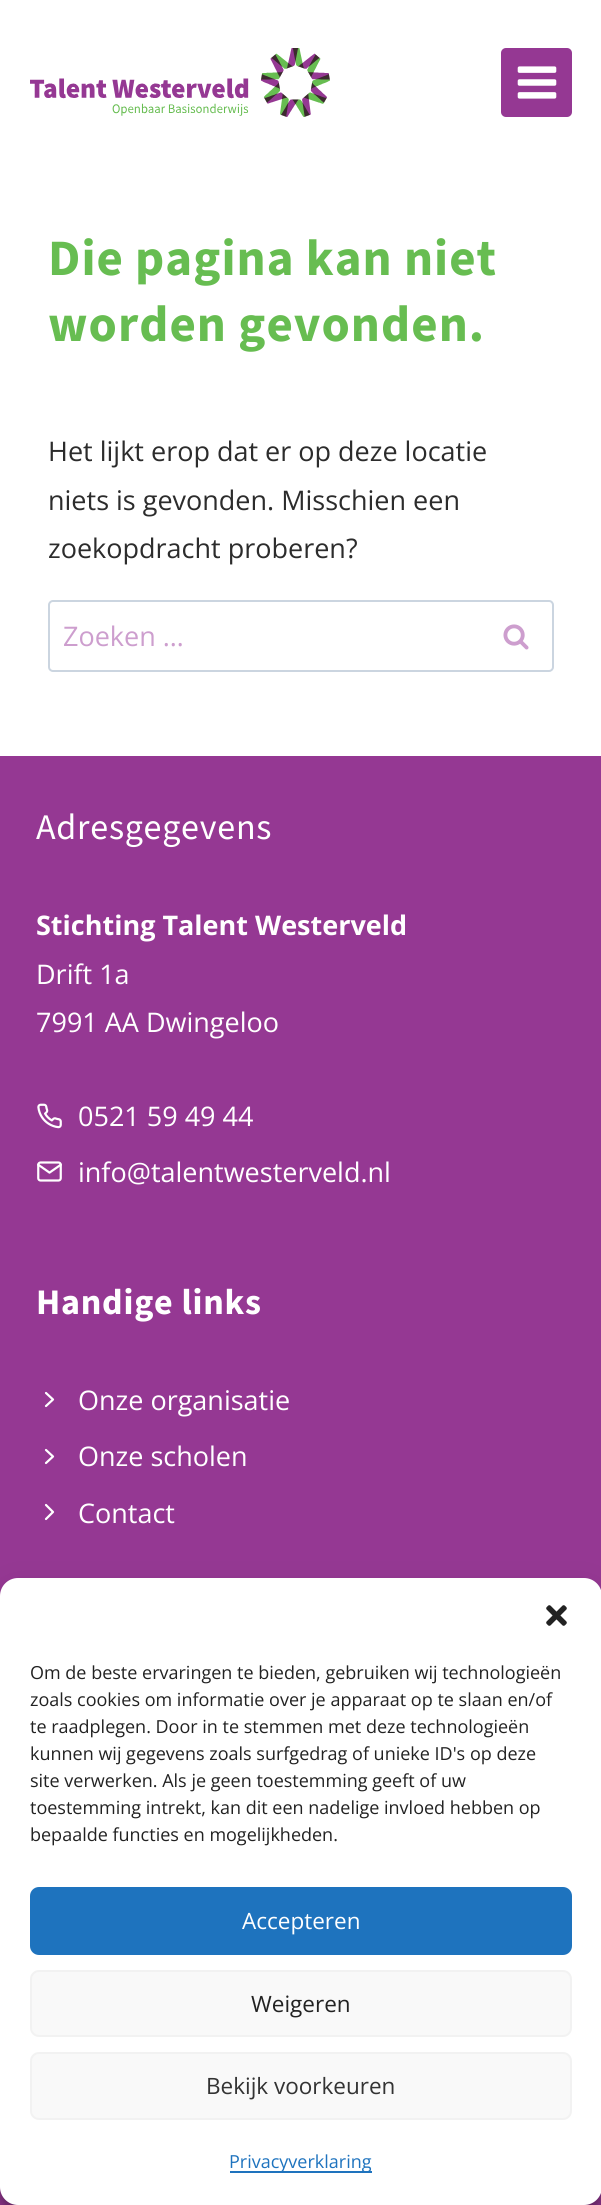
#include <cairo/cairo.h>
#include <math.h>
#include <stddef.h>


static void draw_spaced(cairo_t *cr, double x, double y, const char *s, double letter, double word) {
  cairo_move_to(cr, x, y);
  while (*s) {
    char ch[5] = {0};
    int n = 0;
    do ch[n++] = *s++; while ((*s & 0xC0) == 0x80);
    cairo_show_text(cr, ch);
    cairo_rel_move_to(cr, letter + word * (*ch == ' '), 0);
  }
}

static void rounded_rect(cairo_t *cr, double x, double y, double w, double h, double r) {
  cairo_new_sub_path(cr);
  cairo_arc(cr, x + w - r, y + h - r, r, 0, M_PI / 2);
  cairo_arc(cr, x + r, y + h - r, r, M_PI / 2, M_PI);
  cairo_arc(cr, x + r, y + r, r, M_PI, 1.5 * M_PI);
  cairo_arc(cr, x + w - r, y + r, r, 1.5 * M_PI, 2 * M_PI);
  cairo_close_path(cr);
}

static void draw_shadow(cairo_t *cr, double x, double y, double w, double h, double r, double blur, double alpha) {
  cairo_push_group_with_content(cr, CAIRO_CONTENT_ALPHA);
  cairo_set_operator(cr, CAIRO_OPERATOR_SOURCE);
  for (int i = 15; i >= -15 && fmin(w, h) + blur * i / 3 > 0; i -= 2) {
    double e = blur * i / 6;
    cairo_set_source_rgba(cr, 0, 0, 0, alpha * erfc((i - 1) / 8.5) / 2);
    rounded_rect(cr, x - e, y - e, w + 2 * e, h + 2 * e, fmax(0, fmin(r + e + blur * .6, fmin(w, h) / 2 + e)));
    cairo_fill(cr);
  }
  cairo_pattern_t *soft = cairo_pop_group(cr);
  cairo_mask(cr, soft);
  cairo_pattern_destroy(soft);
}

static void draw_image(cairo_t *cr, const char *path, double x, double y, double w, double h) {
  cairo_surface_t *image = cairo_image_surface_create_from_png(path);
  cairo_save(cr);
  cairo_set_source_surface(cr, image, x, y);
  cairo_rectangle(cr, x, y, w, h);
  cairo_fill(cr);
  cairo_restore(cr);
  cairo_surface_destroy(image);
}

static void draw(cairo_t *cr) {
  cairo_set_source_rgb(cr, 1, 1, 1);
  cairo_paint(cr);
  draw_image(cr, "images/1.png", 30, 48, 300, 69);
  cairo_set_source_rgb(cr, 149 / 255.0, 56 / 255.0, 147 / 255.0);
  rounded_rect(cr, 501, 48, 71, 69, 5);
  cairo_fill(cr);
  draw_image(cr, "images/2.png", 517, 66, 40, 33);
  rounded_rect(cr, 49, 601, 504, 70, 4);
  cairo_set_source_rgb(cr, 203 / 255.0, 213 / 255.0, 224 / 255.0);
  cairo_stroke(cr);
  draw_image(cr, "images/3.png", 503, 624, 26, 26);
  cairo_set_source_rgb(cr, 149 / 255.0, 56 / 255.0, 147 / 255.0);
  cairo_rectangle(cr, 0, 756, 601, 1449);
  cairo_fill(cr);
  draw_image(cr, "images/4.png", 37, 1103, 25, 26);
  draw_image(cr, "images/5.png", 37, 1161, 25, 21);
  cairo_new_path(cr);
  cairo_move_to(cr, 46, 1406);
  cairo_line_to(cr, 53, 1399.5);
  cairo_line_to(cr, 46, 1393);
  cairo_set_source_rgb(cr, 1, 1, 1);
  cairo_set_line_width(cr, 2.2);
  cairo_set_line_cap(cr, CAIRO_LINE_CAP_ROUND);
  cairo_set_line_join(cr, CAIRO_LINE_JOIN_ROUND);
  cairo_stroke(cr);
  cairo_new_path(cr);
  cairo_move_to(cr, 46, 1463);
  cairo_line_to(cr, 53, 1456.5);
  cairo_line_to(cr, 46, 1450);
  cairo_stroke(cr);
  cairo_new_path(cr);
  cairo_move_to(cr, 46, 1519);
  cairo_line_to(cr, 53, 1512);
  cairo_line_to(cr, 46, 1505);
  cairo_stroke(cr);
  cairo_set_source_rgb(cr, 0, 0, 0);
  draw_shadow(cr, 0, 1587, 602, 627, 18, 4.5, 0.23);
  draw_shadow(cr, 0, 1593, 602, 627, 18, 15, 0.19);
  cairo_set_source_rgb(cr, 1, 1, 1);
  rounded_rect(cr, 0, 1578, 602, 627, 18);
  cairo_fill(cr);
  draw_image(cr, "images/6.png", 546, 1605, 21, 21);
  cairo_set_source_rgb(cr, 30 / 255.0, 115 / 255.0, 190 / 255.0);
  rounded_rect(cr, 31, 1888, 540, 66, 8);
  cairo_fill_preserve(cr);
  cairo_set_line_width(cr, 2);
  cairo_set_line_cap(cr, CAIRO_LINE_CAP_BUTT);
  cairo_set_line_join(cr, CAIRO_LINE_JOIN_MITER);
  cairo_stroke(cr);
  cairo_set_source_rgb(cr, 249 / 255.0, 249 / 255.0, 249 / 255.0);
  rounded_rect(cr, 31, 1971, 540, 65, 8);
  cairo_fill_preserve(cr);
  cairo_set_source_rgb(cr, 242 / 255.0, 242 / 255.0, 242 / 255.0);
  cairo_stroke(cr);
  cairo_set_source_rgb(cr, 249 / 255.0, 249 / 255.0, 249 / 255.0);
  rounded_rect(cr, 31, 2053, 540, 66, 8);
  cairo_fill_preserve(cr);
  cairo_set_source_rgb(cr, 242 / 255.0, 242 / 255.0, 242 / 255.0);
  cairo_stroke(cr);
  cairo_set_source_rgb(cr, 30 / 255.0, 115 / 255.0, 190 / 255.0);
  cairo_rectangle(cr, 230, 2171, 142, 2);
  cairo_fill(cr);
  cairo_select_font_face(cr, "Source Sans 3", CAIRO_FONT_SLANT_NORMAL, CAIRO_FONT_WEIGHT_BOLD);
  cairo_set_font_size(cr, 51);
  cairo_set_source_rgb(cr, 103 / 255.0, 189 / 255.0, 81 / 255.0);
  draw_spaced(cr, 48, 275, "Die pagina kan niet", 1, 0);
  draw_spaced(cr, 48, 341, "worden gevonden.", 1, 0);
  cairo_select_font_face(cr, "Open Sans", CAIRO_FONT_SLANT_NORMAL, CAIRO_FONT_WEIGHT_NORMAL);
  cairo_set_font_size(cr, 27);
  cairo_set_source_rgb(cr, 44 / 255.0, 44 / 255.0, 44 / 255.0);
  cairo_move_to(cr, 48, 461);
  cairo_show_text(cr, "Het lijkt erop dat er op deze locatie");
  cairo_move_to(cr, 48, 510);
  cairo_show_text(cr, "niets is gevonden. Misschien een");
  cairo_move_to(cr, 48, 558);
  cairo_show_text(cr, "zoekopdracht proberen?");
  cairo_set_source_rgb(cr, 205 / 255.0, 158 / 255.0, 206 / 255.0);
  cairo_move_to(cr, 63, 646);
  cairo_show_text(cr, "Zoeken …");
  cairo_select_font_face(cr, "Source Sans 3", CAIRO_FONT_SLANT_NORMAL, CAIRO_FONT_WEIGHT_NORMAL);
  cairo_set_font_size(cr, 36);
  cairo_set_source_rgb(cr, 1, 1, 1);
  draw_spaced(cr, 36, 839, "Adresgegevens", 0.75, 0);
  cairo_select_font_face(cr, "Open Sans", CAIRO_FONT_SLANT_NORMAL, CAIRO_FONT_WEIGHT_BOLD);
  cairo_set_font_size(cr, 27);
  cairo_move_to(cr, 36, 935);
  cairo_show_text(cr, "Stichting Talent Westerveld");
  cairo_select_font_face(cr, "Open Sans", CAIRO_FONT_SLANT_NORMAL, CAIRO_FONT_WEIGHT_NORMAL);
  cairo_move_to(cr, 36, 984);
  cairo_show_text(cr, "Drift 1a");
  cairo_move_to(cr, 36, 1032);
  cairo_show_text(cr, "7991 AA Dwingeloo");
  cairo_move_to(cr, 78, 1126);
  cairo_show_text(cr, "0521 59 49 44");
  cairo_move_to(cr, 78, 1182);
  cairo_show_text(cr, "info@talentwesterveld.nl");
  cairo_select_font_face(cr, "Source Sans 3", CAIRO_FONT_SLANT_NORMAL, CAIRO_FONT_WEIGHT_BOLD);
  cairo_set_font_size(cr, 36);
  draw_spaced(cr, 36, 1314, "Handige links", 0.75, 0);
  cairo_select_font_face(cr, "Open Sans", CAIRO_FONT_SLANT_NORMAL, CAIRO_FONT_WEIGHT_NORMAL);
  cairo_set_font_size(cr, 27);
  cairo_move_to(cr, 78, 1410);
  cairo_show_text(cr, "Onze organisatie");
  cairo_move_to(cr, 78, 1466);
  cairo_show_text(cr, "Onze scholen");
  cairo_move_to(cr, 78, 1523);
  cairo_show_text(cr, "Contact");
  cairo_set_font_size(cr, 18);
  cairo_set_source_rgb(cr, 34 / 255.0, 34 / 255.0, 34 / 255.0);
  cairo_move_to(cr, 30, 1679);
  cairo_show_text(cr, "Om de beste ervaringen te bieden, gebruiken wij technologieën");
  cairo_move_to(cr, 30, 1706);
  cairo_show_text(cr, "zoals cookies om informatie over je apparaat op te slaan en/of");
  cairo_move_to(cr, 30, 1733);
  cairo_show_text(cr, "te raadplegen. Door in te stemmen met deze technologieën");
  cairo_move_to(cr, 30, 1760);
  cairo_show_text(cr, "kunnen wij gegevens zoals surfgedrag of unieke ID's op deze");
  cairo_move_to(cr, 30, 1787);
  cairo_show_text(cr, "site verwerken. Als je geen toestemming geeft of uw");
  cairo_move_to(cr, 30, 1814);
  cairo_show_text(cr, "toestemming intrekt, kan dit een nadelige invloed hebben op");
  cairo_move_to(cr, 30, 1841);
  cairo_show_text(cr, "bepaalde functies en mogelijkheden.");
  cairo_set_font_size(cr, 22.5);
  cairo_set_source_rgb(cr, 1, 1, 1);
  cairo_move_to(cr, 242, 1929);
  cairo_show_text(cr, "Accepteren");
  cairo_set_source_rgb(cr, 34 / 255.0, 34 / 255.0, 34 / 255.0);
  cairo_move_to(cr, 251, 2012);
  cairo_show_text(cr, "Weigeren");
  cairo_set_source_rgb(cr, 51 / 255.0, 51 / 255.0, 51 / 255.0);
  cairo_move_to(cr, 206, 2094);
  cairo_show_text(cr, "Bekijk voorkeuren");
  cairo_set_font_size(cr, 18);
  cairo_set_source_rgb(cr, 30 / 255.0, 115 / 255.0, 190 / 255.0);
  cairo_move_to(cr, 229, 2168);
  cairo_show_text(cr, "Privacyverklaring");
}

int main(void) {
  cairo_surface_t *surface = cairo_image_surface_create(CAIRO_FORMAT_RGB24, 601, 2205);
  cairo_t *cr = cairo_create(surface);
  cairo_font_options_t *options = cairo_font_options_create();
  cairo_font_options_set_hint_metrics(options, CAIRO_HINT_METRICS_OFF);
  cairo_font_options_set_hint_style(options, CAIRO_HINT_STYLE_NONE);
  cairo_set_font_options(cr, options);
  cairo_set_miter_limit(cr, 4);
  draw(cr);
  cairo_surface_write_to_png(surface, "out.png");
  cairo_font_options_destroy(options);
  cairo_destroy(cr);
  cairo_surface_destroy(surface);
  return 0;
}
